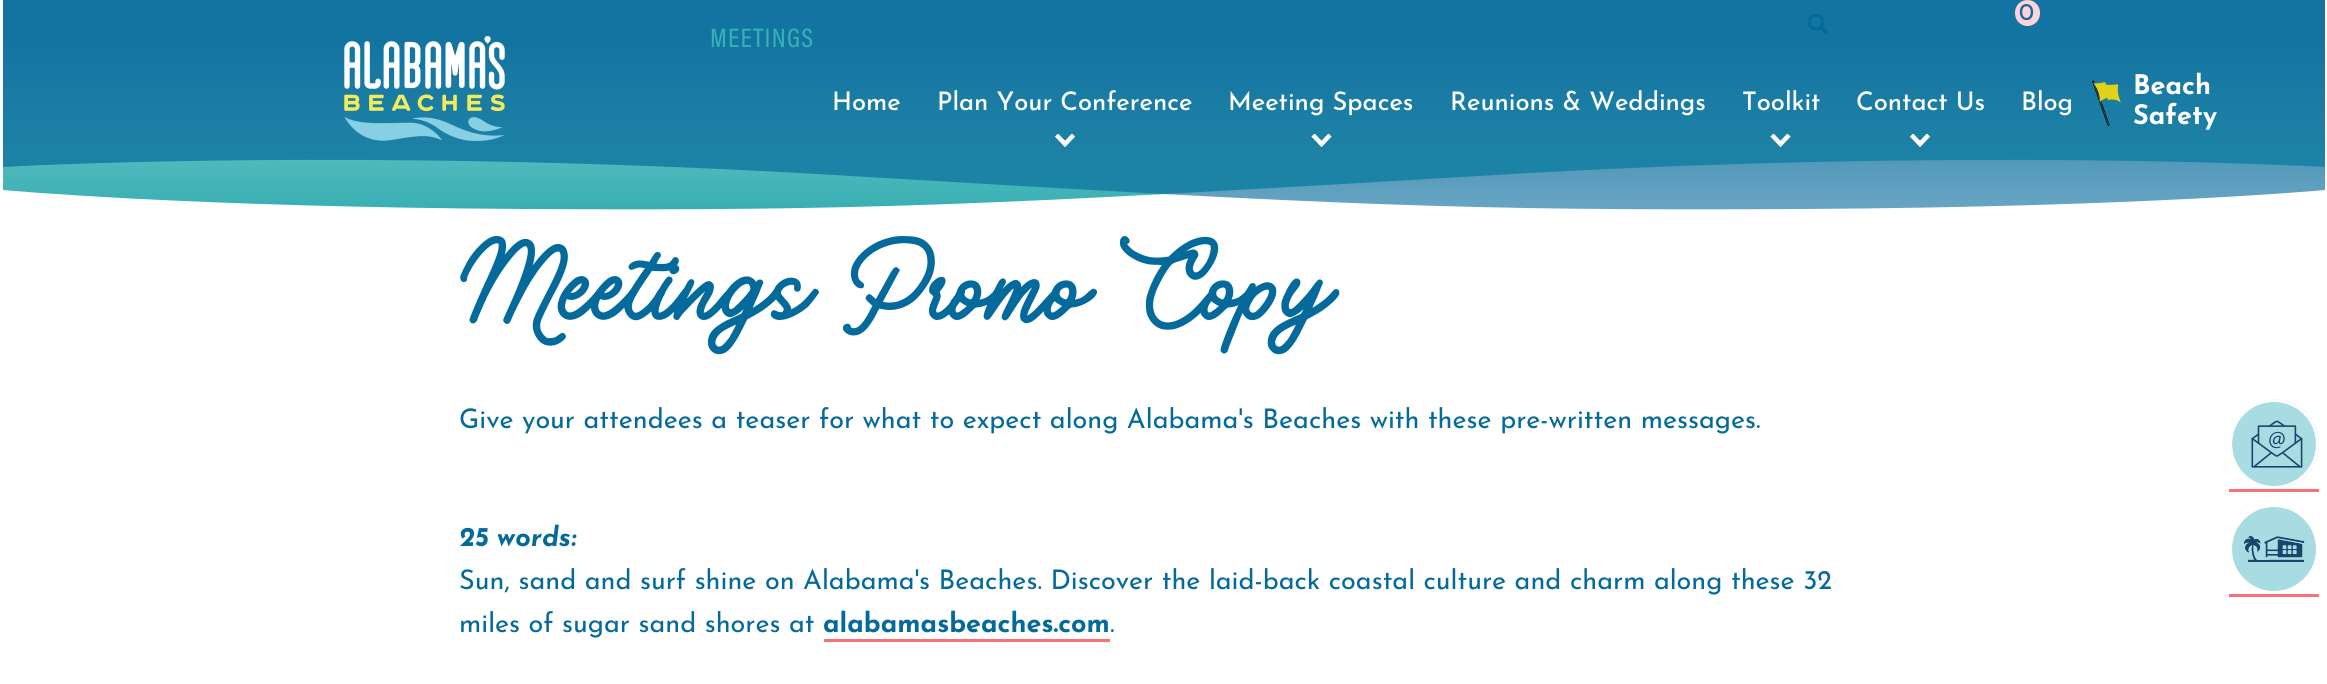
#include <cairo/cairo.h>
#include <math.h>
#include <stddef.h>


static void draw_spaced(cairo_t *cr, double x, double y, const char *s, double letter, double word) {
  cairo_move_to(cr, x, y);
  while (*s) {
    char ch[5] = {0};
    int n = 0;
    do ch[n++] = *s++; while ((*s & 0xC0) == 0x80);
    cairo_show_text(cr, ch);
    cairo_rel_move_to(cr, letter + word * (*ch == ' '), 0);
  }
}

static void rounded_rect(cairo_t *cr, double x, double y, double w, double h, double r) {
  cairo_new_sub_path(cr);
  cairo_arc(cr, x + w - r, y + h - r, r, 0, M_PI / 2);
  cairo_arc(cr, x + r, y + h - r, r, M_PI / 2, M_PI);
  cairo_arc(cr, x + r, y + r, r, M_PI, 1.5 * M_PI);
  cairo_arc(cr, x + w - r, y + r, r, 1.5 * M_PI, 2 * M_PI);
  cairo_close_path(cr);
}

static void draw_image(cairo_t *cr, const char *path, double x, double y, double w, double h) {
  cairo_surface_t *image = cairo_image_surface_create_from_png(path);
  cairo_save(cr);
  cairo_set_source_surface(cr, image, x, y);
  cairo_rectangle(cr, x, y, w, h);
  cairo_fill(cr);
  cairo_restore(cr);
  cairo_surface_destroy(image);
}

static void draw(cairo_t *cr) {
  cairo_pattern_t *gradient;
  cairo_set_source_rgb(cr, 1, 1, 1);
  cairo_paint(cr);
  gradient = cairo_pattern_create_linear(1164, 210, 1164, -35);
  cairo_pattern_add_color_stop_rgba(gradient, 0, 56 / 255.0, 175 / 255.0, 179 / 255.0, 1);
  cairo_pattern_add_color_stop_rgba(gradient, 1, 176 / 255.0, 224 / 255.0, 225 / 255.0, 1);
  cairo_set_source(cr, gradient);
  cairo_pattern_destroy(gradient);
  cairo_new_path(cr);
  cairo_move_to(cr, 3, 190);
  cairo_curve_to(cr, 3, 190, 184, 207, 525, 209);
  cairo_curve_to(cr, 866, 211, 990, 205, 1478, 176);
  cairo_curve_to(cr, 1966, 146, 2325, 167, 2325, 167);
  cairo_line_to(cr, 2325, -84);
  cairo_line_to(cr, 3, -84);
  cairo_close_path(cr);
  cairo_fill(cr);
  gradient = cairo_pattern_create_linear(1164, 210, 1164, 39);
  cairo_pattern_add_color_stop_rgba(gradient, 0, 4 / 255.0, 105 / 255.0, 155 / 255.0, 0.6);
  cairo_pattern_add_color_stop_rgba(gradient, 1, 4 / 255.0, 105 / 255.0, 155 / 255.0, 0.9);
  cairo_set_source(cr, gradient);
  cairo_pattern_destroy(gradient);
  cairo_new_path(cr);
  cairo_move_to(cr, 2325, 190);
  cairo_curve_to(cr, 2325, 190, 2144, 207, 1803, 209);
  cairo_curve_to(cr, 1462, 211, 1338, 205, 850, 176);
  cairo_curve_to(cr, 362, 146, 3, 167, 3, 167);
  cairo_line_to(cr, 3, -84);
  cairo_line_to(cr, 2325, -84);
  cairo_close_path(cr);
  cairo_fill(cr);
  draw_image(cr, "images/1.png", 344, 36, 161, 105);
  draw_image(cr, "images/2.png", 1808, 14, 21, 21);
  cairo_set_source_rgb(cr, 1, 212 / 255.0, 217 / 255.0);
  rounded_rect(cr, 2015, 0, 25, 26, 12.5);
  cairo_fill(cr);
  cairo_save(cr);
  cairo_rectangle(cr, 1055, 134, 21, 13);
  cairo_clip(cr);
  cairo_new_path(cr);
  cairo_move_to(cr, 1056.5, 135);
  cairo_line_to(cr, 1065, 144);
  cairo_line_to(cr, 1073.5, 135);
  cairo_set_source_rgb(cr, 1, 1, 1);
  cairo_set_line_width(cr, 4.5);
  cairo_stroke(cr);
  cairo_restore(cr);
  cairo_save(cr);
  cairo_rectangle(cr, 1311, 134, 21, 13);
  cairo_clip(cr);
  cairo_new_path(cr);
  cairo_move_to(cr, 1313, 135);
  cairo_line_to(cr, 1321.5, 144);
  cairo_line_to(cr, 1330, 135);
  cairo_set_source_rgb(cr, 1, 1, 1);
  cairo_set_line_width(cr, 4.5);
  cairo_stroke(cr);
  cairo_restore(cr);
  cairo_save(cr);
  cairo_rectangle(cr, 1770, 134, 21, 13);
  cairo_clip(cr);
  cairo_new_path(cr);
  cairo_move_to(cr, 1772, 135);
  cairo_line_to(cr, 1780.5, 144);
  cairo_line_to(cr, 1789, 135);
  cairo_set_source_rgb(cr, 1, 1, 1);
  cairo_set_line_width(cr, 4.5);
  cairo_stroke(cr);
  cairo_restore(cr);
  cairo_save(cr);
  cairo_rectangle(cr, 1910, 134, 21, 13);
  cairo_clip(cr);
  cairo_new_path(cr);
  cairo_move_to(cr, 1911.5, 135);
  cairo_line_to(cr, 1920, 144);
  cairo_line_to(cr, 1928.5, 135);
  cairo_set_source_rgb(cr, 1, 1, 1);
  cairo_set_line_width(cr, 4.5);
  cairo_stroke(cr);
  cairo_restore(cr);
  draw_image(cr, "images/3.png", 2092, 80, 18, 47);
  draw_image(cr, "images/4.png", 2093, 82, 28, 21);
  cairo_set_source_rgb(cr, 245 / 255.0, 115 / 255.0, 118 / 255.0);
  cairo_rectangle(cr, 824, 639, 286, 3);
  cairo_fill(cr);
  cairo_rectangle(cr, 2229, 489, 90, 3);
  cairo_fill(cr);
  draw_image(cr, "images/5.png", 2232, 399, 87, 90);
  cairo_arc(cr, 2274, 444, 43.5, 0, 2 * M_PI);
  cairo_set_source_rgb(cr, 1, 1, 1);
  cairo_set_line_width(cr, 3);
  cairo_stroke(cr);
  cairo_set_source_rgb(cr, 245 / 255.0, 115 / 255.0, 118 / 255.0);
  cairo_rectangle(cr, 2229, 594, 90, 3);
  cairo_fill(cr);
  draw_image(cr, "images/6.png", 2232, 507, 84, 84);
  cairo_select_font_face(cr, "Josefin Sans", CAIRO_FONT_SLANT_NORMAL, CAIRO_FONT_WEIGHT_NORMAL);
  cairo_set_font_size(cr, 24);
  cairo_set_source_rgb(cr, 20 / 255.0, 105 / 255.0, 160 / 255.0);
  cairo_move_to(cr, 2019, 20);
  cairo_show_text(cr, "0");
  cairo_select_font_face(cr, "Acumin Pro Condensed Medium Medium", CAIRO_FONT_SLANT_NORMAL, CAIRO_FONT_WEIGHT_NORMAL);
  cairo_set_font_size(cr, 27);
  cairo_set_source_rgb(cr, 56 / 255.0, 175 / 255.0, 179 / 255.0);
  draw_spaced(cr, 710, 47, "MEETINGS", 1.25, 0);
  cairo_select_font_face(cr, "Josefin Sans Medium", CAIRO_FONT_SLANT_NORMAL, CAIRO_FONT_WEIGHT_NORMAL);
  cairo_set_font_size(cr, 25.5);
  cairo_set_source_rgb(cr, 1, 1, 1);
  cairo_move_to(cr, 832, 110);
  cairo_show_text(cr, "Home");
  cairo_move_to(cr, 937, 110);
  cairo_show_text(cr, "Plan Your Conference");
  cairo_move_to(cr, 1228, 110);
  cairo_show_text(cr, "Meeting Spaces");
  cairo_move_to(cr, 1450, 110);
  cairo_show_text(cr, "Reunions & Weddings");
  cairo_move_to(cr, 1742, 110);
  cairo_show_text(cr, "Toolkit");
  cairo_move_to(cr, 1856, 110);
  cairo_show_text(cr, "Contact Us");
  cairo_move_to(cr, 2021, 110);
  cairo_show_text(cr, "Blog");
  cairo_select_font_face(cr, "Josefin Sans", CAIRO_FONT_SLANT_NORMAL, CAIRO_FONT_WEIGHT_BOLD);
  cairo_set_font_size(cr, 27);
  cairo_move_to(cr, 2133, 94);
  cairo_show_text(cr, "Beach");
  cairo_move_to(cr, 2133, 124);
  cairo_show_text(cr, "Safety");
  cairo_select_font_face(cr, "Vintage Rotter", CAIRO_FONT_SLANT_NORMAL, CAIRO_FONT_WEIGHT_NORMAL);
  cairo_set_font_size(cr, 120);
  cairo_set_source_rgb(cr, 4 / 255.0, 105 / 255.0, 155 / 255.0);
  cairo_move_to(cr, 459, 320);
  cairo_show_text(cr, "Meetings Promo Copy");
  cairo_select_font_face(cr, "Josefin Sans", CAIRO_FONT_SLANT_NORMAL, CAIRO_FONT_WEIGHT_NORMAL);
  cairo_set_font_size(cr, 27);
  cairo_move_to(cr, 459, 428);
  cairo_show_text(cr, "Give your attendees a teaser for what to expect along Alabama's Beaches with these pre-written messages.");
  cairo_select_font_face(cr, "Josefin Sans", CAIRO_FONT_SLANT_ITALIC, CAIRO_FONT_WEIGHT_BOLD);
  cairo_move_to(cr, 459, 546);
  cairo_show_text(cr, "25 words:");
  cairo_select_font_face(cr, "Josefin Sans", CAIRO_FONT_SLANT_NORMAL, CAIRO_FONT_WEIGHT_NORMAL);
  cairo_move_to(cr, 459, 589);
  cairo_show_text(cr, "Sun, sand and surf shine on Alabama's Beaches. Discover the laid-back coastal culture and charm along these 32");
  cairo_move_to(cr, 459, 632);
  cairo_show_text(cr, "miles of sugar sand shores at");
  cairo_select_font_face(cr, "Josefin Sans", CAIRO_FONT_SLANT_NORMAL, CAIRO_FONT_WEIGHT_BOLD);
  cairo_move_to(cr, 823, 632);
  cairo_show_text(cr, "alabamasbeaches.com");
  cairo_select_font_face(cr, "Josefin Sans", CAIRO_FONT_SLANT_NORMAL, CAIRO_FONT_WEIGHT_NORMAL);
  cairo_move_to(cr, 1110, 632);
  cairo_show_text(cr, ".");
}

int main(void) {
  cairo_surface_t *surface = cairo_image_surface_create(CAIRO_FORMAT_RGB24, 2327, 684);
  cairo_t *cr = cairo_create(surface);
  cairo_font_options_t *options = cairo_font_options_create();
  cairo_font_options_set_hint_metrics(options, CAIRO_HINT_METRICS_OFF);
  cairo_font_options_set_hint_style(options, CAIRO_HINT_STYLE_NONE);
  cairo_set_font_options(cr, options);
  cairo_set_miter_limit(cr, 4);
  draw(cr);
  cairo_surface_write_to_png(surface, "out.png");
  cairo_font_options_destroy(options);
  cairo_destroy(cr);
  cairo_surface_destroy(surface);
  return 0;
}
